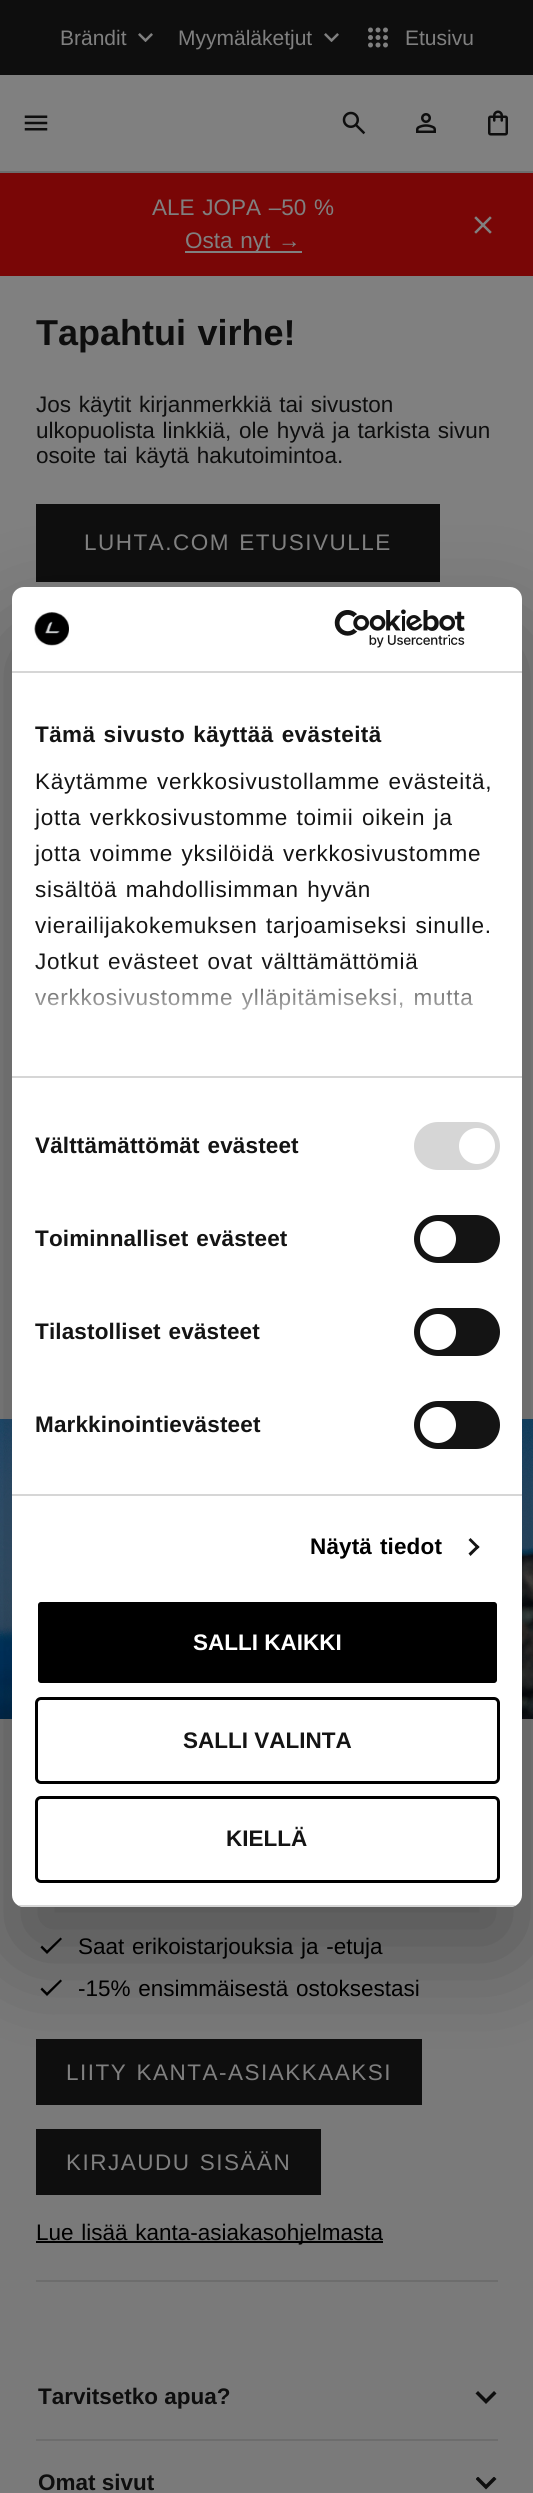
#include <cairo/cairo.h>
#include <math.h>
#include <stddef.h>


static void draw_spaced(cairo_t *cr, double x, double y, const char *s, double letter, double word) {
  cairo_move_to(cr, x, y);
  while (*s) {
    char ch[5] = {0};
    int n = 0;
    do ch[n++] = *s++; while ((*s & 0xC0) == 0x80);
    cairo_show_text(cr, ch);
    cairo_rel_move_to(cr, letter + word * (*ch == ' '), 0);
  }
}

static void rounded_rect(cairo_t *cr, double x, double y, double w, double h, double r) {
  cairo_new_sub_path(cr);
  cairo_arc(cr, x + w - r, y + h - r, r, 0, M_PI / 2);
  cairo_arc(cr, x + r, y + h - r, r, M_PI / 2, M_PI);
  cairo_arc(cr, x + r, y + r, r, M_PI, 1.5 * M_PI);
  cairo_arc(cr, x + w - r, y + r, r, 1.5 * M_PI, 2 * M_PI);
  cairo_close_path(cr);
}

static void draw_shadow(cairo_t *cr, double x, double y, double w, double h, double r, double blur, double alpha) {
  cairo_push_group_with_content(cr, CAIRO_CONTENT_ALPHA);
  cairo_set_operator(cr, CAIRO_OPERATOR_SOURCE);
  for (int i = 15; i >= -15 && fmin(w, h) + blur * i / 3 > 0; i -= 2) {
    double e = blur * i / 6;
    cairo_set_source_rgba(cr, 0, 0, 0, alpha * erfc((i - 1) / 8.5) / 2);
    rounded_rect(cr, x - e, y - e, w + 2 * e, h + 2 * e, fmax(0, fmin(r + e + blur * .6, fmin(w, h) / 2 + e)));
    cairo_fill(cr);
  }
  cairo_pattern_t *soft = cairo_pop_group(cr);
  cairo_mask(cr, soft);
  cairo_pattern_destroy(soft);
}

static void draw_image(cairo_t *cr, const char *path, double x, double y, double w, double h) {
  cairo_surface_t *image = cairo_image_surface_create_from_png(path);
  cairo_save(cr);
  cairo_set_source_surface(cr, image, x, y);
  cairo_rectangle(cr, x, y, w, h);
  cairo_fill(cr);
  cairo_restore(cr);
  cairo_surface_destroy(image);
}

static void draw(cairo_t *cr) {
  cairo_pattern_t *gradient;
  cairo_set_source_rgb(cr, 128 / 255.0, 128 / 255.0, 128 / 255.0);
  cairo_paint(cr);
  cairo_set_source_rgb(cr, 14 / 255.0, 14 / 255.0, 14 / 255.0);
  cairo_rectangle(cr, 0, 0, 533, 75);
  cairo_fill(cr);
  draw_image(cr, "images/1.png", 138, 33, 15, 9);
  draw_image(cr, "images/1.png", 324, 33, 15, 9);
  draw_image(cr, "images/2.png", 368, 27, 20, 21);
  cairo_set_source_rgb(cr, 109 / 255.0, 109 / 255.0, 109 / 255.0);
  cairo_rectangle(cr, 0, 171, 533, 2);
  cairo_fill(cr);
  draw_image(cr, "images/3.png", 24, 115, 24, 16);
  draw_image(cr, "images/4.png", 342, 111, 24, 24);
  draw_image(cr, "images/5.png", 416, 113, 20, 20);
  draw_image(cr, "images/6.png", 488, 110, 20, 26);
  cairo_set_source_rgb(cr, 121 / 255.0, 6 / 255.0, 6 / 255.0);
  cairo_rectangle(cr, 0, 173, 533, 103);
  cairo_fill(cr);
  cairo_set_source_rgb(cr, 128 / 255.0, 128 / 255.0, 128 / 255.0);
  cairo_rectangle(cr, 185, 251, 117, 2);
  cairo_fill(cr);
  draw_image(cr, "images/7.png", 474, 216, 18, 18);
  cairo_set_source_rgb(cr, 14 / 255.0, 14 / 255.0, 14 / 255.0);
  cairo_rectangle(cr, 36, 504, 404, 78);
  cairo_fill(cr);
  cairo_set_source_rgb(cr, 122 / 255.0, 122 / 255.0, 122 / 255.0);
  cairo_rectangle(cr, 0, 1719, 533, 774);
  cairo_fill(cr);
  draw_image(cr, "images/8.png", 0, 1419, 533, 300);
  cairo_set_source_rgb(cr, 0, 0, 0);
  cairo_new_path(cr);
  cairo_move_to(cr, 47, 1950.5);
  cairo_line_to(cr, 42, 1945.5);
  cairo_line_to(cr, 40.5, 1947.5);
  cairo_line_to(cr, 47, 1954);
  cairo_line_to(cr, 62, 1939);
  cairo_line_to(cr, 60.5, 1937.5);
  cairo_close_path(cr);
  cairo_move_to(cr, 47, 1992.5);
  cairo_line_to(cr, 42, 1987.5);
  cairo_line_to(cr, 40.5, 1989.5);
  cairo_line_to(cr, 47, 1996);
  cairo_line_to(cr, 62, 1981);
  cairo_line_to(cr, 60.5, 1979.5);
  cairo_close_path(cr);
  cairo_fill(cr);
  cairo_set_source_rgb(cr, 14 / 255.0, 14 / 255.0, 14 / 255.0);
  cairo_rectangle(cr, 36, 2039, 386, 66);
  cairo_fill(cr);
  cairo_rectangle(cr, 36, 2129, 285, 66);
  cairo_fill(cr);
  cairo_set_source_rgb(cr, 0, 0, 0);
  cairo_rectangle(cr, 36, 2241, 347, 2);
  cairo_fill(cr);
  cairo_set_source_rgb(cr, 109 / 255.0, 109 / 255.0, 109 / 255.0);
  cairo_rectangle(cr, 36, 2280, 462, 2);
  cairo_fill(cr);
  cairo_rectangle(cr, 36, 2439, 462, 2);
  cairo_fill(cr);
  cairo_set_source_rgb(cr, 14 / 255.0, 14 / 255.0, 14 / 255.0);
  cairo_new_path(cr);
  cairo_move_to(cr, 494, 2391);
  cairo_line_to(cr, 486, 2399);
  cairo_line_to(cr, 478, 2391);
  cairo_line_to(cr, 475.5, 2393.5);
  cairo_line_to(cr, 486, 2404);
  cairo_line_to(cr, 496.5, 2393.5);
  cairo_close_path(cr);
  cairo_fill(cr);
  cairo_save(cr);
  cairo_rectangle(cr, 476, 2477, 21, 15);
  cairo_clip(cr);
  cairo_new_path(cr);
  cairo_move_to(cr, 494, 2476.5);
  cairo_line_to(cr, 486, 2484.5);
  cairo_line_to(cr, 478, 2476.5);
  cairo_line_to(cr, 475.5, 2479);
  cairo_line_to(cr, 486, 2489.5);
  cairo_line_to(cr, 496.5, 2479);
  cairo_close_path(cr);
  cairo_fill(cr);
  cairo_restore(cr);
  cairo_set_source_rgb(cr, 0, 0, 0);
  draw_shadow(cr, 12, 635, 510, 1320, 12, 51, 0.3);
  cairo_set_source_rgb(cr, 1, 1, 1);
  rounded_rect(cr, 12, 587, 510, 1320, 12);
  cairo_fill(cr);
  cairo_set_source_rgb(cr, 214 / 255.0, 214 / 255.0, 214 / 255.0);
  cairo_rectangle(cr, 12, 671, 510, 2);
  cairo_fill(cr);
  draw_image(cr, "images/9.png", 34, 612, 35, 34);
  draw_image(cr, "images/10.png", 334, 609, 131, 39);
  cairo_rectangle(cr, 12, 1076, 510, 2);
  cairo_fill(cr);
  cairo_rectangle(cr, 12, 1494, 510, 2);
  cairo_fill(cr);
  rounded_rect(cr, 414, 1122, 86, 48, 24);
  cairo_fill(cr);
  cairo_set_source_rgb(cr, 1, 1, 1);
  cairo_arc(cr, 477, 1146, 18, 0, 2 * M_PI);
  cairo_fill(cr);
  cairo_set_source_rgb(cr, 20 / 255.0, 20 / 255.0, 20 / 255.0);
  rounded_rect(cr, 414, 1215, 86, 48, 24);
  cairo_fill(cr);
  cairo_set_source_rgb(cr, 1, 1, 1);
  cairo_arc(cr, 438, 1239, 18, 0, 2 * M_PI);
  cairo_fill(cr);
  cairo_set_source_rgb(cr, 20 / 255.0, 20 / 255.0, 20 / 255.0);
  rounded_rect(cr, 414, 1308, 86, 48, 24);
  cairo_fill(cr);
  cairo_set_source_rgb(cr, 1, 1, 1);
  cairo_arc(cr, 438, 1332, 18, 0, 2 * M_PI);
  cairo_fill(cr);
  cairo_set_source_rgb(cr, 20 / 255.0, 20 / 255.0, 20 / 255.0);
  rounded_rect(cr, 414, 1401, 86, 48, 24);
  cairo_fill(cr);
  cairo_set_source_rgb(cr, 1, 1, 1);
  cairo_arc(cr, 438, 1425, 18, 0, 2 * M_PI);
  cairo_fill(cr);
  cairo_set_source_rgb(cr, 20 / 255.0, 20 / 255.0, 20 / 255.0);
  cairo_new_path(cr);
  cairo_move_to(cr, 470.5, 1538);
  cairo_line_to(cr, 479.5, 1547);
  cairo_line_to(cr, 477.5, 1549);
  cairo_line_to(cr, 468.5, 1540);
  cairo_close_path(cr);
  cairo_fill(cr);
  cairo_new_path(cr);
  cairo_move_to(cr, 477.5, 1545);
  cairo_line_to(cr, 479.5, 1547);
  cairo_line_to(cr, 470.5, 1556);
  cairo_line_to(cr, 468.5, 1553.5);
  cairo_close_path(cr);
  cairo_fill(cr);
  cairo_save(cr);
  rounded_rect(cr, 12, 587, 510, 1320, 12);
  cairo_clip(cr);
  cairo_set_source_rgb(cr, 214 / 255.0, 214 / 255.0, 214 / 255.0);
  cairo_rectangle(cr, 12, 1905, 510, 2);
  cairo_fill(cr);
  cairo_restore(cr);
  cairo_set_source_rgb(cr, 0, 0, 0);
  rounded_rect(cr, 36.5, 1600.5, 462, 84, 4.5);
  cairo_fill_preserve(cr);
  cairo_set_source_rgb(cr, 1, 1, 1);
  cairo_set_line_width(cr, 3);
  cairo_stroke(cr);
  rounded_rect(cr, 36.5, 1698.5, 462, 84, 4.5);
  cairo_set_source_rgb(cr, 0, 0, 0);
  cairo_stroke(cr);
  rounded_rect(cr, 36.5, 1797.5, 462, 84, 4.5);
  cairo_stroke(cr);
  cairo_select_font_face(cr, "Liberation Sans", CAIRO_FONT_SLANT_NORMAL, CAIRO_FONT_WEIGHT_NORMAL);
  cairo_set_font_size(cr, 21);
  cairo_set_source_rgb(cr, 128 / 255.0, 128 / 255.0, 128 / 255.0);
  cairo_move_to(cr, 60, 45);
  cairo_show_text(cr, "Brändit");
  cairo_move_to(cr, 178, 45);
  cairo_show_text(cr, "Myymäläketjut");
  cairo_move_to(cr, 405, 45);
  cairo_show_text(cr, "Etusivu");
  cairo_set_font_size(cr, 22.5);
  draw_spaced(cr, 152, 215, "ALE JOPA –50 %", 0, 1.5);
  draw_spaced(cr, 185, 248, "Osta nyt →", 0, 1.5);
  cairo_select_font_face(cr, "Liberation Sans", CAIRO_FONT_SLANT_NORMAL, CAIRO_FONT_WEIGHT_BOLD);
  cairo_set_font_size(cr, 36);
  cairo_set_source_rgb(cr, 14 / 255.0, 14 / 255.0, 14 / 255.0);
  draw_spaced(cr, 36, 345, "Tapahtui virhe!", 0, 1.5);
  cairo_select_font_face(cr, "Liberation Sans", CAIRO_FONT_SLANT_NORMAL, CAIRO_FONT_WEIGHT_NORMAL);
  cairo_set_font_size(cr, 22.5);
  draw_spaced(cr, 36, 412, "Jos käytit kirjanmerkkiä tai sivuston", 0, 1.5);
  draw_spaced(cr, 36, 438, "ulkopuolista linkkiä, ole hyvä ja tarkista sivun", 0, 1.5);
  draw_spaced(cr, 36, 463, "osoite tai käytä hakutoimintoa.", 0, 1.5);
  cairo_set_source_rgb(cr, 128 / 255.0, 128 / 255.0, 128 / 255.0);
  draw_spaced(cr, 84, 550, "LUHTA.COM ETUSIVULLE", 1.5, 1.5);
  cairo_set_source_rgb(cr, 0, 0, 0);
  draw_spaced(cr, 78, 1954, "Saat erikoistarjouksia ja -etuja", 0, 1.5);
  draw_spaced(cr, 78, 1996, "-15% ensimmäisestä ostoksestasi", 0, 1.5);
  cairo_set_source_rgb(cr, 128 / 255.0, 128 / 255.0, 128 / 255.0);
  draw_spaced(cr, 66, 2080, "LIITY KANTA-ASIAKKAAKSI", 1.5, 1.5);
  draw_spaced(cr, 66, 2170, "KIRJAUDU SISÄÄN", 1.5, 1.5);
  cairo_set_source_rgb(cr, 0, 0, 0);
  draw_spaced(cr, 36, 2240, "Lue lisää kanta-asiakasohjelmasta", 0, 1.5);
  cairo_select_font_face(cr, "Liberation Sans", CAIRO_FONT_SLANT_NORMAL, CAIRO_FONT_WEIGHT_BOLD);
  cairo_set_source_rgb(cr, 14 / 255.0, 14 / 255.0, 14 / 255.0);
  cairo_move_to(cr, 38, 2404);
  cairo_show_text(cr, "Tarvitsetko apua?");
  cairo_move_to(cr, 38, 2490);
  cairo_show_text(cr, "Omat sivut");
  cairo_set_source_rgb(cr, 20 / 255.0, 20 / 255.0, 20 / 255.0);
  draw_spaced(cr, 35, 742, "Tämä sivusto käyttää evästeitä", 0.4, 1.5);
  cairo_select_font_face(cr, "Liberation Sans", CAIRO_FONT_SLANT_NORMAL, CAIRO_FONT_WEIGHT_NORMAL);
  draw_spaced(cr, 35, 789, "Käytämme verkkosivustollamme evästeitä,", 0.75, 1.5);
  draw_spaced(cr, 35, 825, "jotta verkkosivustomme toimii", 0.75, 1.5);
  draw_spaced(cr, 362, 825, "oikein ja", 0.75, 1.5);
  draw_spaced(cr, 35, 861, "jotta voimme yksilöidä verkkosivustomme", 0.75, 1.5);
  draw_spaced(cr, 35, 897, "sisältöä mahdollisimman hyvän", 0.75, 1.5);
  draw_spaced(cr, 35, 933, "vierailijakokemuksen tarjoamiseksi sinulle.", 0.75, 1.5);
  draw_spaced(cr, 35, 969, "Jotkut evästeet ovat välttämättömiä", 0.75, 1.5);
  draw_spaced(cr, 35, 1005, "verkkosivustomme ylläpitämiseksi, mutta", 0.75, 1.5);
  gradient = cairo_pattern_create_linear(257, 1076, 257, 963);
  cairo_pattern_add_color_stop_rgba(gradient, 0, 1, 1, 1, 1);
  cairo_pattern_add_color_stop_rgba(gradient, 0.5, 1, 1, 1, 0.8);
  cairo_pattern_add_color_stop_rgba(gradient, 1, 1, 1, 1, 0);
  cairo_set_source(cr, gradient);
  cairo_pattern_destroy(gradient);
  cairo_rectangle(cr, 34, 965, 439, 45);
  cairo_fill(cr);
  cairo_select_font_face(cr, "Liberation Sans", CAIRO_FONT_SLANT_NORMAL, CAIRO_FONT_WEIGHT_BOLD);
  cairo_set_source_rgb(cr, 20 / 255.0, 20 / 255.0, 20 / 255.0);
  draw_spaced(cr, 35, 1153, "Välttämättömät evästeet", 0.15, 1.5);
  draw_spaced(cr, 35, 1246, "Toiminnalliset evästeet", 0.15, 1.5);
  draw_spaced(cr, 35, 1339, "Tilastolliset evästeet", 0.15, 1.5);
  draw_spaced(cr, 35, 1432, "Markkinointievästeet", 0.15, 0);
  cairo_set_source_rgb(cr, 0, 0, 0);
  draw_spaced(cr, 310, 1554, "Näytä tiedot", 0.15, 1.5);
  cairo_set_source_rgb(cr, 1, 1, 1);
  cairo_move_to(cr, 193, 1650);
  cairo_show_text(cr, "SALLI KAIKKI");
  cairo_set_source_rgb(cr, 20 / 255.0, 20 / 255.0, 20 / 255.0);
  cairo_move_to(cr, 183, 1748);
  cairo_show_text(cr, "SALLI VALINTA");
  cairo_move_to(cr, 226, 1846);
  cairo_show_text(cr, "KIELLÄ");
}

int main(void) {
  cairo_surface_t *surface = cairo_image_surface_create(CAIRO_FORMAT_RGB24, 533, 2493);
  cairo_t *cr = cairo_create(surface);
  cairo_font_options_t *options = cairo_font_options_create();
  cairo_font_options_set_hint_metrics(options, CAIRO_HINT_METRICS_OFF);
  cairo_font_options_set_hint_style(options, CAIRO_HINT_STYLE_NONE);
  cairo_set_font_options(cr, options);
  cairo_set_miter_limit(cr, 4);
  draw(cr);
  cairo_surface_write_to_png(surface, "out.png");
  cairo_font_options_destroy(options);
  cairo_destroy(cr);
  cairo_surface_destroy(surface);
  return 0;
}
